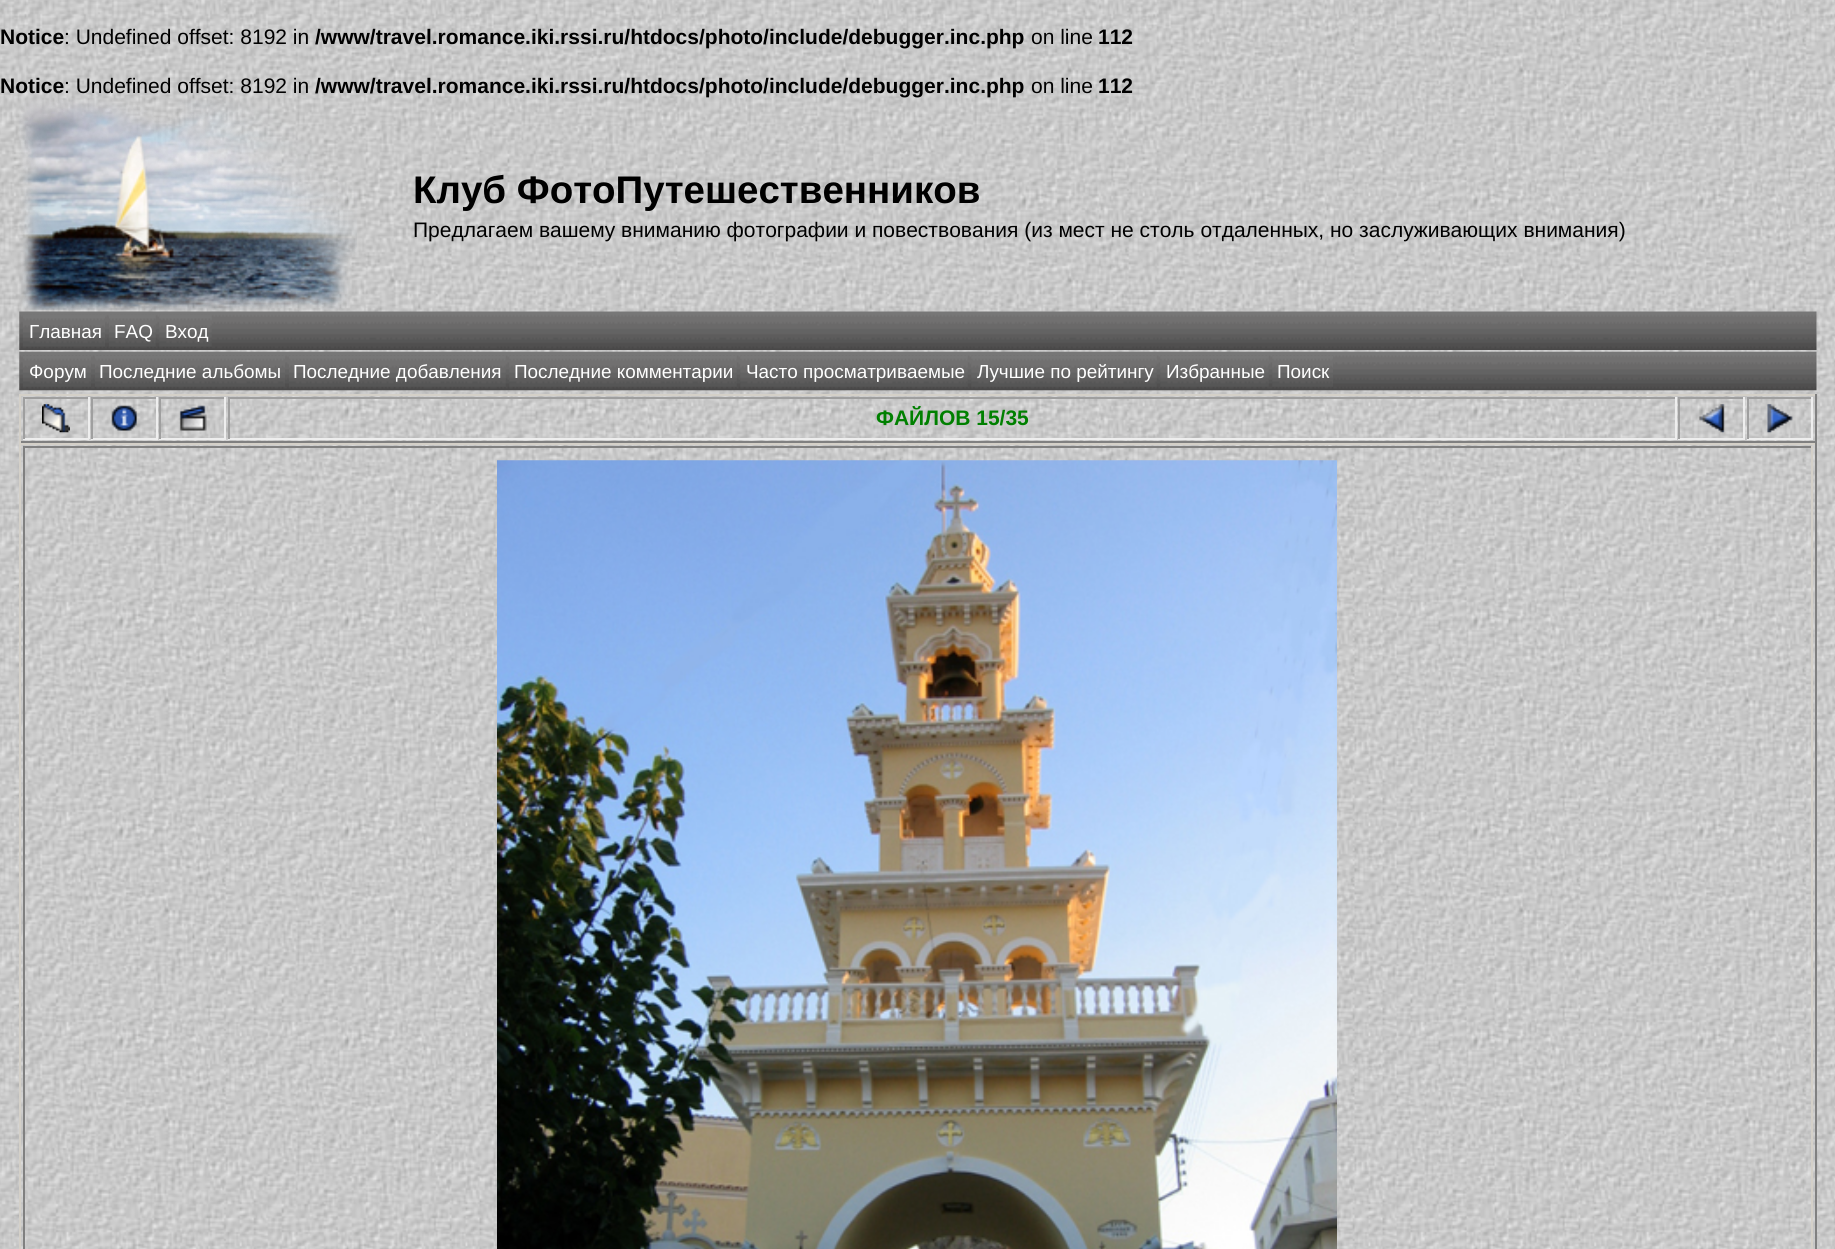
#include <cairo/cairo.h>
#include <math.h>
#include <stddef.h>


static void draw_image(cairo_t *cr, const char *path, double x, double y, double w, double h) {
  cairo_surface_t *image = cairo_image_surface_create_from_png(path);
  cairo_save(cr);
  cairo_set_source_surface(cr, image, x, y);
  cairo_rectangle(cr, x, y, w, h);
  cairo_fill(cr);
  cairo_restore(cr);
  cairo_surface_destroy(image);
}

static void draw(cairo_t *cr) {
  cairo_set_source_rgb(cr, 1, 1, 1);
  cairo_paint(cr);
  draw_image(cr, "images/1.png", 0, 0, 1835, 1249);
  draw_image(cr, "images/2.png", 19, 100, 338, 210);
  draw_image(cr, "images/3.png", 19, 311, 1798, 39);
  draw_image(cr, "images/4.png", 23, 315, 82, 32);
  draw_image(cr, "images/5.png", 109, 315, 47, 32);
  draw_image(cr, "images/6.png", 159, 315, 53, 32);
  draw_image(cr, "images/7.png", 19, 351, 1798, 40);
  draw_image(cr, "images/8.png", 23, 356, 68, 31);
  draw_image(cr, "images/9.png", 95, 356, 190, 31);
  draw_image(cr, "images/10.png", 289, 356, 217, 31);
  draw_image(cr, "images/11.png", 509, 356, 228, 31);
  draw_image(cr, "images/12.png", 740, 356, 228, 31);
  draw_image(cr, "images/13.png", 971, 356, 186, 31);
  draw_image(cr, "images/14.png", 1160, 356, 109, 31);
  draw_image(cr, "images/15.png", 1272, 356, 61, 31);
  cairo_set_source_rgb(cr, 212 / 255.0, 208 / 255.0, 200 / 255.0);
  cairo_rectangle(cr, 19, 394, 1798, 2);
  cairo_fill(cr);
  cairo_set_source_rgb(cr, 128 / 255.0, 128 / 255.0, 128 / 255.0);
  cairo_rectangle(cr, 1815, 394, 2, 49);
  cairo_fill(cr);
  cairo_rectangle(cr, 19, 441, 1798, 2);
  cairo_fill(cr);
  cairo_set_source_rgb(cr, 212 / 255.0, 208 / 255.0, 200 / 255.0);
  cairo_rectangle(cr, 19, 394, 2, 49);
  cairo_fill(cr);
  cairo_set_source_rgb(cr, 159 / 255.0, 159 / 255.0, 159 / 255.0);
  cairo_rectangle(cr, 23, 397, 66, 2);
  cairo_fill(cr);
  cairo_set_source_rgb(cr, 238 / 255.0, 238 / 255.0, 238 / 255.0);
  cairo_rectangle(cr, 88, 397, 2, 42);
  cairo_fill(cr);
  cairo_rectangle(cr, 23, 438, 66, 2);
  cairo_fill(cr);
  cairo_set_source_rgb(cr, 159 / 255.0, 159 / 255.0, 159 / 255.0);
  cairo_rectangle(cr, 23, 397, 2, 42);
  cairo_fill(cr);
  draw_image(cr, "images/16.png", 42, 404, 28, 29);
  cairo_rectangle(cr, 91, 397, 67, 2);
  cairo_fill(cr);
  cairo_set_source_rgb(cr, 238 / 255.0, 238 / 255.0, 238 / 255.0);
  cairo_rectangle(cr, 156, 397, 2, 42);
  cairo_fill(cr);
  cairo_rectangle(cr, 91, 438, 67, 2);
  cairo_fill(cr);
  cairo_set_source_rgb(cr, 159 / 255.0, 159 / 255.0, 159 / 255.0);
  cairo_rectangle(cr, 91, 397, 2, 42);
  cairo_fill(cr);
  draw_image(cr, "images/17.png", 111, 405, 26, 26);
  cairo_rectangle(cr, 159, 397, 67, 2);
  cairo_fill(cr);
  cairo_set_source_rgb(cr, 238 / 255.0, 238 / 255.0, 238 / 255.0);
  cairo_rectangle(cr, 224, 397, 2, 42);
  cairo_fill(cr);
  cairo_rectangle(cr, 159, 438, 67, 2);
  cairo_fill(cr);
  cairo_set_source_rgb(cr, 159 / 255.0, 159 / 255.0, 159 / 255.0);
  cairo_rectangle(cr, 159, 397, 2, 42);
  cairo_fill(cr);
  draw_image(cr, "images/18.png", 179, 405, 28, 26);
  cairo_rectangle(cr, 228, 397, 1449, 2);
  cairo_fill(cr);
  cairo_set_source_rgb(cr, 238 / 255.0, 238 / 255.0, 238 / 255.0);
  cairo_rectangle(cr, 1675, 397, 2, 42);
  cairo_fill(cr);
  cairo_rectangle(cr, 228, 438, 1449, 2);
  cairo_fill(cr);
  cairo_set_source_rgb(cr, 159 / 255.0, 159 / 255.0, 159 / 255.0);
  cairo_rectangle(cr, 228, 397, 2, 42);
  cairo_fill(cr);
  cairo_rectangle(cr, 1678, 397, 67, 2);
  cairo_fill(cr);
  cairo_set_source_rgb(cr, 238 / 255.0, 238 / 255.0, 238 / 255.0);
  cairo_rectangle(cr, 1743, 397, 2, 42);
  cairo_fill(cr);
  cairo_rectangle(cr, 1678, 438, 67, 2);
  cairo_fill(cr);
  cairo_set_source_rgb(cr, 159 / 255.0, 159 / 255.0, 159 / 255.0);
  cairo_rectangle(cr, 1678, 397, 2, 42);
  cairo_fill(cr);
  draw_image(cr, "images/19.png", 1698, 404, 27, 29);
  cairo_rectangle(cr, 1747, 397, 66, 2);
  cairo_fill(cr);
  cairo_set_source_rgb(cr, 238 / 255.0, 238 / 255.0, 238 / 255.0);
  cairo_rectangle(cr, 1811, 397, 2, 42);
  cairo_fill(cr);
  cairo_rectangle(cr, 1747, 438, 66, 2);
  cairo_fill(cr);
  cairo_set_source_rgb(cr, 159 / 255.0, 159 / 255.0, 159 / 255.0);
  cairo_rectangle(cr, 1747, 397, 2, 42);
  cairo_fill(cr);
  draw_image(cr, "images/20.png", 1767, 404, 26, 29);
  cairo_set_source_rgb(cr, 212 / 255.0, 208 / 255.0, 200 / 255.0);
  cairo_rectangle(cr, 19, 443, 1798, 2);
  cairo_fill(cr);
  cairo_set_source_rgb(cr, 128 / 255.0, 128 / 255.0, 128 / 255.0);
  cairo_rectangle(cr, 1815, 443, 2, 806);
  cairo_fill(cr);
  cairo_set_source_rgb(cr, 212 / 255.0, 208 / 255.0, 200 / 255.0);
  cairo_rectangle(cr, 19, 443, 2, 806);
  cairo_fill(cr);
  cairo_set_source_rgb(cr, 128 / 255.0, 128 / 255.0, 128 / 255.0);
  cairo_rectangle(cr, 23, 446, 1790, 2);
  cairo_fill(cr);
  cairo_set_source_rgb(cr, 212 / 255.0, 208 / 255.0, 200 / 255.0);
  cairo_rectangle(cr, 1811, 446, 2, 803);
  cairo_fill(cr);
  cairo_set_source_rgb(cr, 128 / 255.0, 128 / 255.0, 128 / 255.0);
  cairo_rectangle(cr, 23, 446, 2, 803);
  cairo_fill(cr);
  draw_image(cr, "images/21.png", 497, 460, 840, 789);
  cairo_select_font_face(cr, "Liberation Sans", CAIRO_FONT_SLANT_NORMAL, CAIRO_FONT_WEIGHT_BOLD);
  cairo_set_font_size(cr, 21);
  cairo_set_source_rgb(cr, 0, 0, 0);
  cairo_move_to(cr, 0, 44);
  cairo_show_text(cr, "Notice");
  cairo_select_font_face(cr, "Liberation Sans", CAIRO_FONT_SLANT_NORMAL, CAIRO_FONT_WEIGHT_NORMAL);
  cairo_move_to(cr, 64, 44);
  cairo_show_text(cr, ": Undefined offset: 8192 in");
  cairo_select_font_face(cr, "Liberation Sans", CAIRO_FONT_SLANT_NORMAL, CAIRO_FONT_WEIGHT_BOLD);
  cairo_move_to(cr, 315, 44);
  cairo_show_text(cr, "/www/travel.romance.iki.rssi.ru/htdocs/photo/include/debugger.inc.php");
  cairo_select_font_face(cr, "Liberation Sans", CAIRO_FONT_SLANT_NORMAL, CAIRO_FONT_WEIGHT_NORMAL);
  cairo_move_to(cr, 1031, 44);
  cairo_show_text(cr, "on line");
  cairo_select_font_face(cr, "Liberation Sans", CAIRO_FONT_SLANT_NORMAL, CAIRO_FONT_WEIGHT_BOLD);
  cairo_move_to(cr, 1098, 44);
  cairo_show_text(cr, "112");
  cairo_move_to(cr, 0, 93);
  cairo_show_text(cr, "Notice");
  cairo_select_font_face(cr, "Liberation Sans", CAIRO_FONT_SLANT_NORMAL, CAIRO_FONT_WEIGHT_NORMAL);
  cairo_move_to(cr, 64, 93);
  cairo_show_text(cr, ": Undefined offset: 8192 in");
  cairo_select_font_face(cr, "Liberation Sans", CAIRO_FONT_SLANT_NORMAL, CAIRO_FONT_WEIGHT_BOLD);
  cairo_move_to(cr, 315, 93);
  cairo_show_text(cr, "/www/travel.romance.iki.rssi.ru/htdocs/photo/include/debugger.inc.php");
  cairo_select_font_face(cr, "Liberation Sans", CAIRO_FONT_SLANT_NORMAL, CAIRO_FONT_WEIGHT_NORMAL);
  cairo_move_to(cr, 1031, 93);
  cairo_show_text(cr, "on line");
  cairo_select_font_face(cr, "Liberation Sans", CAIRO_FONT_SLANT_NORMAL, CAIRO_FONT_WEIGHT_BOLD);
  cairo_move_to(cr, 1098, 93);
  cairo_show_text(cr, "112");
  cairo_set_font_size(cr, 38.5);
  cairo_move_to(cr, 413, 203);
  cairo_show_text(cr, "Клуб ФотоПутешественников");
  cairo_select_font_face(cr, "Liberation Sans", CAIRO_FONT_SLANT_NORMAL, CAIRO_FONT_WEIGHT_NORMAL);
  cairo_set_font_size(cr, 21);
  cairo_move_to(cr, 413, 237);
  cairo_show_text(cr, "Предлагаем вашему вниманию фотографии и повествования (из мест не столь отдаленных, но заслуживающих внимания)");
  cairo_set_font_size(cr, 18.9);
  cairo_set_source_rgb(cr, 1, 1, 1);
  cairo_move_to(cr, 29, 338);
  cairo_show_text(cr, "Главная");
  cairo_move_to(cr, 114, 338);
  cairo_show_text(cr, "FAQ");
  cairo_move_to(cr, 165, 338);
  cairo_show_text(cr, "Вход");
  cairo_move_to(cr, 29, 378);
  cairo_show_text(cr, "Форум");
  cairo_move_to(cr, 99, 378);
  cairo_show_text(cr, "Последние альбомы");
  cairo_move_to(cr, 293, 378);
  cairo_show_text(cr, "Последние добавления");
  cairo_move_to(cr, 514, 378);
  cairo_show_text(cr, "Последние комментарии");
  cairo_move_to(cr, 746, 378);
  cairo_show_text(cr, "Часто просматриваемые");
  cairo_move_to(cr, 977, 378);
  cairo_show_text(cr, "Лучшие по рейтингу");
  cairo_move_to(cr, 1166, 378);
  cairo_show_text(cr, "Избранные");
  cairo_move_to(cr, 1277, 378);
  cairo_show_text(cr, "Поиск");
  cairo_select_font_face(cr, "Liberation Sans", CAIRO_FONT_SLANT_NORMAL, CAIRO_FONT_WEIGHT_BOLD);
  cairo_set_font_size(cr, 21);
  cairo_set_source_rgb(cr, 0, 128 / 255.0, 0);
  cairo_move_to(cr, 876, 425);
  cairo_show_text(cr, "ФАЙЛОВ 15/35");
}

int main(void) {
  cairo_surface_t *surface = cairo_image_surface_create(CAIRO_FORMAT_RGB24, 1835, 1249);
  cairo_t *cr = cairo_create(surface);
  cairo_font_options_t *options = cairo_font_options_create();
  cairo_font_options_set_hint_metrics(options, CAIRO_HINT_METRICS_OFF);
  cairo_font_options_set_hint_style(options, CAIRO_HINT_STYLE_NONE);
  cairo_set_font_options(cr, options);
  cairo_set_miter_limit(cr, 4);
  draw(cr);
  cairo_surface_write_to_png(surface, "out.png");
  cairo_font_options_destroy(options);
  cairo_destroy(cr);
  cairo_surface_destroy(surface);
  return 0;
}
